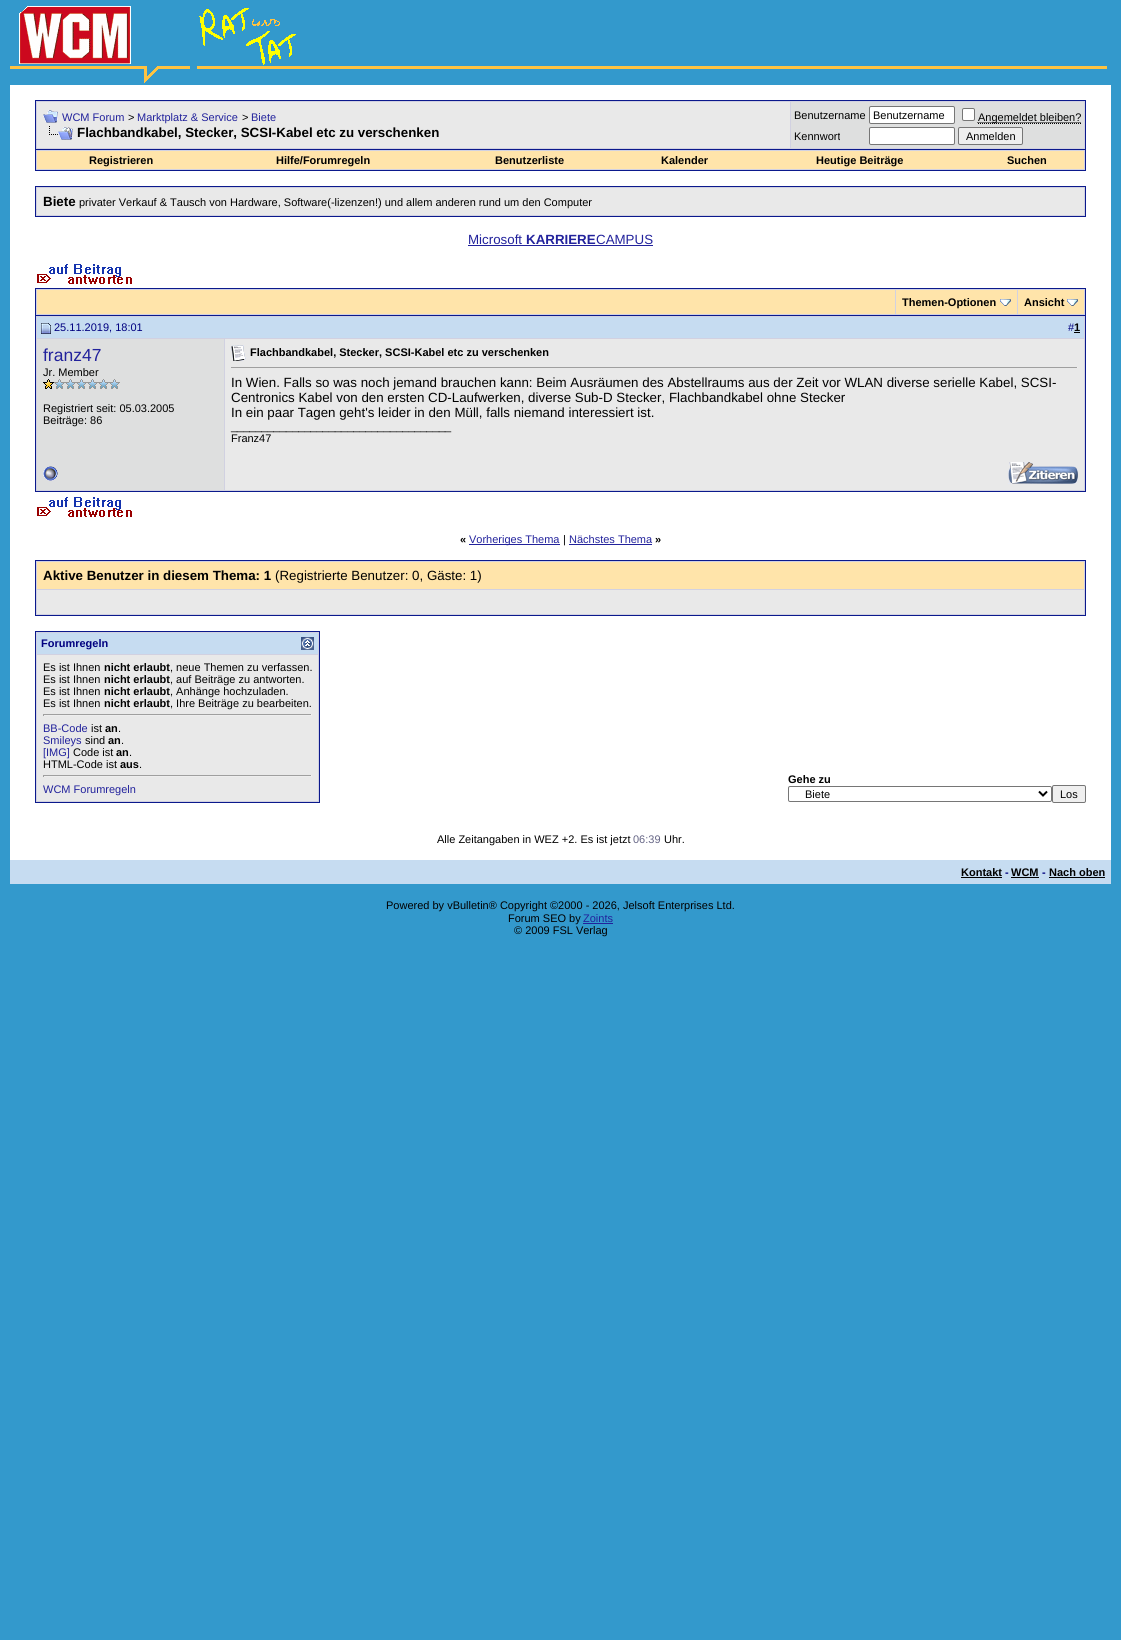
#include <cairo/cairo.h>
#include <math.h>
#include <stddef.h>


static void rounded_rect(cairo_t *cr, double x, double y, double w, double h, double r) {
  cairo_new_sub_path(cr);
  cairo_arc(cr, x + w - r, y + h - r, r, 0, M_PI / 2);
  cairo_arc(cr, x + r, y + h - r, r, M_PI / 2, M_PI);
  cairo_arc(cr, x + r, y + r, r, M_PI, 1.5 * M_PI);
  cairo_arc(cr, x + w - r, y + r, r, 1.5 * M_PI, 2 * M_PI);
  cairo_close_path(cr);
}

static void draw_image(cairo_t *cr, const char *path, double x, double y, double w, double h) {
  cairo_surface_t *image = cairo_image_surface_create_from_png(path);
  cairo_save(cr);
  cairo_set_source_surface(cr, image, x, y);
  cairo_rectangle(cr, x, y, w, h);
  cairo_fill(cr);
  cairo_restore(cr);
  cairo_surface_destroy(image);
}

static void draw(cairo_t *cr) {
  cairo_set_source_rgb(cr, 51 / 255.0, 153 / 255.0, 204 / 255.0);
  cairo_paint(cr);
  draw_image(cr, "images/1.png", 19, 6, 112, 58);
  draw_image(cr, "images/2.png", 199, 8, 97, 57);
  draw_image(cr, "images/3.png", 10, 66, 180, 17);
  cairo_set_source_rgb(cr, 1, 195 / 255.0, 65 / 255.0);
  cairo_rectangle(cr, 197, 66, 910, 3);
  cairo_fill(cr);
  cairo_set_source_rgb(cr, 1, 1, 1);
  cairo_rectangle(cr, 10, 85, 1101, 775);
  cairo_fill(cr);
  cairo_set_source_rgb(cr, 209 / 255.0, 209 / 255.0, 225 / 255.0);
  cairo_rectangle(cr, 35.5, 100.5, 1050, 49);
  cairo_fill_preserve(cr);
  cairo_set_source_rgb(cr, 11 / 255.0, 25 / 255.0, 140 / 255.0);
  cairo_set_line_width(cr, 1);
  cairo_stroke(cr);
  cairo_set_source_rgb(cr, 233 / 255.0, 233 / 255.0, 233 / 255.0);
  cairo_rectangle(cr, 37, 102, 753, 46);
  cairo_fill(cr);
  draw_image(cr, "images/4.png", 43, 110, 15, 13);
  draw_image(cr, "images/5.png", 49, 126, 24, 14);
  cairo_set_source_rgb(cr, 222 / 255.0, 223 / 255.0, 223 / 255.0);
  cairo_rectangle(cr, 791, 102, 293, 46);
  cairo_fill(cr);
  cairo_set_source_rgb(cr, 1, 1, 1);
  rounded_rect(cr, 869.5, 106.5, 85, 17, 1.5);
  cairo_fill_preserve(cr);
  cairo_set_source_rgb(cr, 118 / 255.0, 118 / 255.0, 118 / 255.0);
  cairo_stroke(cr);
  cairo_set_source_rgb(cr, 1, 1, 1);
  rounded_rect(cr, 962.5, 108.5, 12, 12, 1.5);
  cairo_fill_preserve(cr);
  cairo_set_source_rgb(cr, 118 / 255.0, 118 / 255.0, 118 / 255.0);
  cairo_stroke(cr);
  cairo_new_path(cr);
  cairo_move_to(cr, 978, 123.5);
  cairo_line_to(cr, 1081, 123.5);
  cairo_set_source_rgb(cr, 0, 0, 0);
  cairo_set_dash(cr, (double[]){1, 1}, 2, 0);
  cairo_stroke(cr);
  cairo_new_path(cr);
  cairo_move_to(cr, 977.5, 122.5);
  cairo_line_to(cr, 1081, 122.5);
  cairo_stroke(cr);
  cairo_set_source_rgb(cr, 1, 1, 1);
  rounded_rect(cr, 869.5, 127.5, 85, 17, 1.5);
  cairo_fill_preserve(cr);
  cairo_set_source_rgb(cr, 118 / 255.0, 118 / 255.0, 118 / 255.0);
  cairo_set_dash(cr, NULL, 0, 0);
  cairo_stroke(cr);
  cairo_set_source_rgb(cr, 239 / 255.0, 239 / 255.0, 239 / 255.0);
  rounded_rect(cr, 958.5, 127.5, 64, 17, 1.5);
  cairo_fill_preserve(cr);
  cairo_set_source_rgb(cr, 118 / 255.0, 118 / 255.0, 118 / 255.0);
  cairo_stroke(cr);
  cairo_set_source_rgb(cr, 209 / 255.0, 209 / 255.0, 225 / 255.0);
  cairo_rectangle(cr, 36, 150, 1049, 20);
  cairo_fill(cr);
  cairo_set_source_rgb(cr, 11 / 255.0, 25 / 255.0, 140 / 255.0);
  cairo_rectangle(cr, 1085, 150, 1, 21);
  cairo_fill(cr);
  cairo_rectangle(cr, 35, 170, 1051, 1);
  cairo_fill(cr);
  cairo_rectangle(cr, 35, 150, 1, 21);
  cairo_fill(cr);
  cairo_set_source_rgb(cr, 1, 228 / 255.0, 170 / 255.0);
  cairo_rectangle(cr, 37, 151, 1047, 18);
  cairo_fill(cr);
  cairo_set_source_rgb(cr, 209 / 255.0, 209 / 255.0, 225 / 255.0);
  cairo_rectangle(cr, 35.5, 186.5, 1050, 30);
  cairo_fill_preserve(cr);
  cairo_set_source_rgb(cr, 11 / 255.0, 25 / 255.0, 140 / 255.0);
  cairo_stroke(cr);
  cairo_set_source_rgb(cr, 233 / 255.0, 233 / 255.0, 233 / 255.0);
  cairo_rectangle(cr, 37, 188, 1047, 27);
  cairo_fill(cr);
  cairo_set_source_rgb(cr, 34 / 255.0, 34 / 255.0, 156 / 255.0);
  cairo_rectangle(cr, 468, 245, 185, 1);
  cairo_fill(cr);
  draw_image(cr, "images/6.png", 37, 264, 95, 20);
  cairo_set_source_rgb(cr, 209 / 255.0, 209 / 255.0, 225 / 255.0);
  cairo_rectangle(cr, 36, 289, 1049, 26);
  cairo_fill(cr);
  cairo_set_source_rgb(cr, 11 / 255.0, 25 / 255.0, 140 / 255.0);
  cairo_rectangle(cr, 35, 288, 1051, 1);
  cairo_fill(cr);
  cairo_rectangle(cr, 1085, 288, 1, 27);
  cairo_fill(cr);
  cairo_rectangle(cr, 35, 288, 1, 27);
  cairo_fill(cr);
  cairo_set_source_rgb(cr, 1, 228 / 255.0, 170 / 255.0);
  cairo_rectangle(cr, 37, 290, 858, 24);
  cairo_fill(cr);
  cairo_rectangle(cr, 896, 290, 121, 24);
  cairo_fill(cr);
  draw_image(cr, "images/7.png", 1000, 299, 11, 7);
  cairo_rectangle(cr, 1018, 290, 66, 24);
  cairo_fill(cr);
  draw_image(cr, "images/7.png", 1067, 299, 11, 7);
  cairo_rectangle(cr, 35.5, 315.5, 1050, 176);
  cairo_set_source_rgb(cr, 11 / 255.0, 25 / 255.0, 140 / 255.0);
  cairo_stroke(cr);
  cairo_set_source_rgb(cr, 198 / 255.0, 220 / 255.0, 241 / 255.0);
  cairo_rectangle(cr, 37, 317, 1047, 21);
  cairo_fill(cr);
  cairo_set_source_rgb(cr, 209 / 255.0, 209 / 255.0, 225 / 255.0);
  cairo_rectangle(cr, 36, 316, 1049, 1);
  cairo_fill(cr);
  cairo_rectangle(cr, 36, 338, 189, 1);
  cairo_fill(cr);
  cairo_rectangle(cr, 36, 316, 1, 140);
  cairo_fill(cr);
  draw_image(cr, "images/8.png", 41, 323, 10, 11);
  cairo_rectangle(cr, 1084, 316, 1, 175);
  cairo_fill(cr);
  cairo_rectangle(cr, 225, 338, 860, 1);
  cairo_fill(cr);
  cairo_set_source_rgb(cr, 0, 0, 0);
  cairo_rectangle(cr, 1074, 332, 6, 1);
  cairo_fill(cr);
  cairo_set_source_rgb(cr, 222 / 255.0, 223 / 255.0, 223 / 255.0);
  cairo_rectangle(cr, 37, 339, 187, 151);
  cairo_fill(cr);
  cairo_set_source_rgb(cr, 209 / 255.0, 209 / 255.0, 225 / 255.0);
  cairo_rectangle(cr, 224, 339, 1, 152);
  cairo_fill(cr);
  draw_image(cr, "images/9.png", 43, 379, 77, 10);
  cairo_set_source_rgb(cr, 233 / 255.0, 233 / 255.0, 233 / 255.0);
  cairo_rectangle(cr, 225, 339, 859, 151);
  cairo_fill(cr);
  draw_image(cr, "images/10.png", 231, 345, 15, 16);
  cairo_set_source_rgb(cr, 159 / 255.0, 159 / 255.0, 159 / 255.0);
  cairo_rectangle(cr, 231, 367, 847, 1);
  cairo_fill(cr);
  cairo_set_source_rgb(cr, 238 / 255.0, 238 / 255.0, 238 / 255.0);
  cairo_rectangle(cr, 1077, 367, 1, 1);
  cairo_fill(cr);
  cairo_set_source_rgb(cr, 209 / 255.0, 209 / 255.0, 225 / 255.0);
  cairo_rectangle(cr, 36, 490, 1049, 1);
  cairo_fill(cr);
  cairo_rectangle(cr, 36, 456, 1, 35);
  cairo_fill(cr);
  draw_image(cr, "images/11.png", 43, 466, 15, 15);
  draw_image(cr, "images/12.png", 1008, 462, 70, 22);
  draw_image(cr, "images/6.png", 37, 497, 95, 20);
  cairo_set_source_rgb(cr, 34 / 255.0, 34 / 255.0, 156 / 255.0);
  cairo_rectangle(cr, 469, 544, 91, 1);
  cairo_fill(cr);
  cairo_rectangle(cr, 569, 544, 83, 1);
  cairo_fill(cr);
  cairo_set_source_rgb(cr, 209 / 255.0, 209 / 255.0, 225 / 255.0);
  cairo_rectangle(cr, 35.5, 560.5, 1050, 55);
  cairo_fill_preserve(cr);
  cairo_set_source_rgb(cr, 11 / 255.0, 25 / 255.0, 140 / 255.0);
  cairo_stroke(cr);
  cairo_set_source_rgb(cr, 1, 228 / 255.0, 170 / 255.0);
  cairo_rectangle(cr, 37, 562, 1047, 27);
  cairo_fill(cr);
  cairo_set_source_rgb(cr, 233 / 255.0, 233 / 255.0, 233 / 255.0);
  cairo_rectangle(cr, 37, 590, 1047, 24);
  cairo_fill(cr);
  cairo_set_source_rgb(cr, 209 / 255.0, 209 / 255.0, 225 / 255.0);
  cairo_rectangle(cr, 35.5, 631.5, 284, 171);
  cairo_fill_preserve(cr);
  cairo_set_source_rgb(cr, 11 / 255.0, 25 / 255.0, 140 / 255.0);
  cairo_stroke(cr);
  cairo_set_source_rgb(cr, 198 / 255.0, 220 / 255.0, 241 / 255.0);
  cairo_rectangle(cr, 37, 633, 281, 21);
  cairo_fill(cr);
  draw_image(cr, "images/13.png", 301, 637, 13, 13);
  cairo_set_source_rgb(cr, 233 / 255.0, 233 / 255.0, 233 / 255.0);
  cairo_rectangle(cr, 37, 655, 281, 146);
  cairo_fill(cr);
  cairo_set_source_rgb(cr, 159 / 255.0, 159 / 255.0, 159 / 255.0);
  cairo_rectangle(cr, 43, 714, 269, 1);
  cairo_fill(cr);
  cairo_set_source_rgb(cr, 238 / 255.0, 238 / 255.0, 238 / 255.0);
  cairo_rectangle(cr, 311, 714, 1, 2);
  cairo_fill(cr);
  cairo_rectangle(cr, 43, 715, 269, 1);
  cairo_fill(cr);
  cairo_set_source_rgb(cr, 159 / 255.0, 159 / 255.0, 159 / 255.0);
  cairo_rectangle(cr, 43, 714, 1, 2);
  cairo_fill(cr);
  cairo_rectangle(cr, 43, 775, 269, 1);
  cairo_fill(cr);
  cairo_set_source_rgb(cr, 238 / 255.0, 238 / 255.0, 238 / 255.0);
  cairo_rectangle(cr, 311, 775, 1, 2);
  cairo_fill(cr);
  cairo_rectangle(cr, 43, 776, 269, 1);
  cairo_fill(cr);
  cairo_set_source_rgb(cr, 159 / 255.0, 159 / 255.0, 159 / 255.0);
  cairo_rectangle(cr, 43, 775, 1, 2);
  cairo_fill(cr);
  rounded_rect(cr, 788.5, 786.5, 263, 15, 1.5);
  cairo_set_source_rgb(cr, 118 / 255.0, 118 / 255.0, 118 / 255.0);
  cairo_stroke(cr);
  cairo_new_path(cr);
  cairo_move_to(cr, 1039, 791.5);
  cairo_line_to(cr, 1043, 795.5);
  cairo_line_to(cr, 1047, 791.5);
  cairo_set_source_rgb(cr, 0, 0, 0);
  cairo_set_line_width(cr, 2);
  cairo_stroke(cr);
  cairo_set_source_rgb(cr, 239 / 255.0, 239 / 255.0, 239 / 255.0);
  rounded_rect(cr, 1052.5, 785.5, 33, 17, 1.5);
  cairo_fill_preserve(cr);
  cairo_set_source_rgb(cr, 118 / 255.0, 118 / 255.0, 118 / 255.0);
  cairo_set_line_width(cr, 1);
  cairo_stroke(cr);
  cairo_set_source_rgb(cr, 198 / 255.0, 220 / 255.0, 241 / 255.0);
  cairo_rectangle(cr, 10, 860, 1101, 24);
  cairo_fill(cr);
  cairo_set_source_rgb(cr, 0, 0, 0);
  cairo_rectangle(cr, 961, 877, 41, 1);
  cairo_fill(cr);
  cairo_rectangle(cr, 1011, 877, 28, 1);
  cairo_fill(cr);
  cairo_rectangle(cr, 1049, 877, 56, 1);
  cairo_fill(cr);
  cairo_set_source_rgb(cr, 34 / 255.0, 34 / 255.0, 156 / 255.0);
  cairo_rectangle(cr, 583, 923, 30, 1);
  cairo_fill(cr);
  cairo_select_font_face(cr, "Liberation Sans", CAIRO_FONT_SLANT_NORMAL, CAIRO_FONT_WEIGHT_NORMAL);
  cairo_set_font_size(cr, 11);
  cairo_move_to(cr, 62, 121);
  cairo_show_text(cr, "WCM Forum");
  cairo_set_source_rgb(cr, 0, 0, 0);
  cairo_move_to(cr, 128, 121);
  cairo_show_text(cr, ">");
  cairo_set_source_rgb(cr, 34 / 255.0, 34 / 255.0, 156 / 255.0);
  cairo_move_to(cr, 137, 121);
  cairo_show_text(cr, "Marktplatz & Service");
  cairo_set_source_rgb(cr, 0, 0, 0);
  cairo_move_to(cr, 242, 121);
  cairo_show_text(cr, ">");
  cairo_set_source_rgb(cr, 34 / 255.0, 34 / 255.0, 156 / 255.0);
  cairo_move_to(cr, 251, 121);
  cairo_show_text(cr, "Biete");
  cairo_select_font_face(cr, "Liberation Sans", CAIRO_FONT_SLANT_NORMAL, CAIRO_FONT_WEIGHT_BOLD);
  cairo_set_font_size(cr, 13.33);
  cairo_set_source_rgb(cr, 0, 0, 0);
  cairo_move_to(cr, 77, 137);
  cairo_show_text(cr, "Flachbandkabel, Stecker, SCSI-Kabel etc zu verschenken");
  cairo_select_font_face(cr, "Liberation Sans", CAIRO_FONT_SLANT_NORMAL, CAIRO_FONT_WEIGHT_NORMAL);
  cairo_set_font_size(cr, 11);
  cairo_move_to(cr, 794, 119);
  cairo_show_text(cr, "Benutzername");
  cairo_move_to(cr, 873, 119);
  cairo_show_text(cr, "Benutzername");
  cairo_move_to(cr, 978, 121);
  cairo_show_text(cr, "Angemeldet bleiben?");
  cairo_move_to(cr, 794, 140);
  cairo_show_text(cr, "Kennwort");
  cairo_move_to(cr, 966, 140);
  cairo_show_text(cr, "Anmelden");
  cairo_select_font_face(cr, "Liberation Sans", CAIRO_FONT_SLANT_NORMAL, CAIRO_FONT_WEIGHT_BOLD);
  cairo_move_to(cr, 89, 164);
  cairo_show_text(cr, "Registrieren");
  cairo_move_to(cr, 276, 164);
  cairo_show_text(cr, "Hilfe/Forumregeln");
  cairo_move_to(cr, 495, 164);
  cairo_show_text(cr, "Benutzerliste");
  cairo_move_to(cr, 661, 164);
  cairo_show_text(cr, "Kalender");
  cairo_move_to(cr, 816, 164);
  cairo_show_text(cr, "Heutige Beiträge");
  cairo_move_to(cr, 1007, 164);
  cairo_show_text(cr, "Suchen");
  cairo_set_font_size(cr, 13.33);
  cairo_move_to(cr, 43, 206);
  cairo_show_text(cr, "Biete");
  cairo_select_font_face(cr, "Liberation Sans", CAIRO_FONT_SLANT_NORMAL, CAIRO_FONT_WEIGHT_NORMAL);
  cairo_set_font_size(cr, 11);
  cairo_move_to(cr, 79, 206);
  cairo_show_text(cr, "privater Verkauf & Tausch von Hardware, Software(-lizenzen!) und allem anderen rund um den Computer");
  cairo_set_font_size(cr, 13.33);
  cairo_set_source_rgb(cr, 34 / 255.0, 34 / 255.0, 156 / 255.0);
  cairo_move_to(cr, 468, 244);
  cairo_show_text(cr, "Microsoft");
  cairo_select_font_face(cr, "Liberation Sans", CAIRO_FONT_SLANT_NORMAL, CAIRO_FONT_WEIGHT_BOLD);
  cairo_move_to(cr, 526, 244);
  cairo_show_text(cr, "KARRIERE");
  cairo_select_font_face(cr, "Liberation Sans", CAIRO_FONT_SLANT_NORMAL, CAIRO_FONT_WEIGHT_NORMAL);
  cairo_move_to(cr, 596, 244);
  cairo_show_text(cr, "CAMPUS");
  cairo_select_font_face(cr, "Liberation Sans", CAIRO_FONT_SLANT_NORMAL, CAIRO_FONT_WEIGHT_BOLD);
  cairo_set_font_size(cr, 11);
  cairo_set_source_rgb(cr, 0, 0, 0);
  cairo_move_to(cr, 902, 306);
  cairo_show_text(cr, "Themen-Optionen");
  cairo_move_to(cr, 1024, 306);
  cairo_show_text(cr, "Ansicht");
  cairo_select_font_face(cr, "Liberation Sans", CAIRO_FONT_SLANT_NORMAL, CAIRO_FONT_WEIGHT_NORMAL);
  cairo_set_source_rgb(cr, 0, 0, 128 / 255.0);
  cairo_move_to(cr, 54, 331);
  cairo_show_text(cr, "25.11.2019, 18:01");
  cairo_move_to(cr, 1068, 331);
  cairo_show_text(cr, "#");
  cairo_select_font_face(cr, "Liberation Sans", CAIRO_FONT_SLANT_NORMAL, CAIRO_FONT_WEIGHT_BOLD);
  cairo_set_source_rgb(cr, 0, 0, 0);
  cairo_move_to(cr, 1074, 331);
  cairo_show_text(cr, "1");
  cairo_select_font_face(cr, "Liberation Sans", CAIRO_FONT_SLANT_NORMAL, CAIRO_FONT_WEIGHT_NORMAL);
  cairo_set_font_size(cr, 17.5);
  cairo_set_source_rgb(cr, 34 / 255.0, 34 / 255.0, 156 / 255.0);
  cairo_move_to(cr, 43, 361);
  cairo_show_text(cr, "franz47");
  cairo_set_font_size(cr, 11);
  cairo_set_source_rgb(cr, 0, 0, 0);
  cairo_move_to(cr, 43, 376);
  cairo_show_text(cr, "Jr. Member");
  cairo_move_to(cr, 43, 412);
  cairo_show_text(cr, "Registriert seit: 05.03.2005");
  cairo_move_to(cr, 43, 424);
  cairo_show_text(cr, "Beiträge: 86");
  cairo_select_font_face(cr, "Liberation Sans", CAIRO_FONT_SLANT_NORMAL, CAIRO_FONT_WEIGHT_BOLD);
  cairo_move_to(cr, 250, 356);
  cairo_show_text(cr, "Flachbandkabel, Stecker, SCSI-Kabel etc zu verschenken");
  cairo_select_font_face(cr, "Liberation Sans", CAIRO_FONT_SLANT_NORMAL, CAIRO_FONT_WEIGHT_NORMAL);
  cairo_set_font_size(cr, 13.33);
  cairo_move_to(cr, 231, 387);
  cairo_show_text(cr, "In Wien. Falls so was noch jemand brauchen kann: Beim Ausräumen des Abstellraums aus der Zeit vor WLAN diverse serielle Kabel, SCSI-");
  cairo_move_to(cr, 231, 402);
  cairo_show_text(cr, "Centronics Kabel von den ersten CD-Laufwerken, diverse Sub-D Stecker, Flachbandkabel ohne Stecker");
  cairo_move_to(cr, 231, 417);
  cairo_show_text(cr, "In ein paar Tagen geht's leider in den Müll, falls niemand interessiert ist.");
  cairo_set_font_size(cr, 11);
  cairo_move_to(cr, 231, 430);
  cairo_show_text(cr, "____________________________________");
  cairo_move_to(cr, 231, 442);
  cairo_show_text(cr, "Franz47");
  cairo_select_font_face(cr, "Liberation Sans", CAIRO_FONT_SLANT_NORMAL, CAIRO_FONT_WEIGHT_BOLD);
  cairo_move_to(cr, 460, 543);
  cairo_show_text(cr, "«");
  cairo_select_font_face(cr, "Liberation Sans", CAIRO_FONT_SLANT_NORMAL, CAIRO_FONT_WEIGHT_NORMAL);
  cairo_set_source_rgb(cr, 34 / 255.0, 34 / 255.0, 156 / 255.0);
  cairo_move_to(cr, 469, 543);
  cairo_show_text(cr, "Vorheriges Thema");
  cairo_set_source_rgb(cr, 0, 0, 0);
  cairo_move_to(cr, 563, 543);
  cairo_show_text(cr, "|");
  cairo_set_source_rgb(cr, 34 / 255.0, 34 / 255.0, 156 / 255.0);
  cairo_move_to(cr, 569, 543);
  cairo_show_text(cr, "Nächstes Thema");
  cairo_select_font_face(cr, "Liberation Sans", CAIRO_FONT_SLANT_NORMAL, CAIRO_FONT_WEIGHT_BOLD);
  cairo_set_source_rgb(cr, 0, 0, 0);
  cairo_move_to(cr, 655, 543);
  cairo_show_text(cr, "»");
  cairo_set_font_size(cr, 13.33);
  cairo_move_to(cr, 43, 580);
  cairo_show_text(cr, "Aktive Benutzer in diesem Thema: 1");
  cairo_select_font_face(cr, "Liberation Sans", CAIRO_FONT_SLANT_NORMAL, CAIRO_FONT_WEIGHT_NORMAL);
  cairo_move_to(cr, 275, 580);
  cairo_show_text(cr, "(Registrierte Benutzer: 0, Gäste: 1)");
  cairo_select_font_face(cr, "Liberation Sans", CAIRO_FONT_SLANT_NORMAL, CAIRO_FONT_WEIGHT_BOLD);
  cairo_set_font_size(cr, 11);
  cairo_set_source_rgb(cr, 0, 0, 128 / 255.0);
  cairo_move_to(cr, 41, 647);
  cairo_show_text(cr, "Forumregeln");
  cairo_select_font_face(cr, "Liberation Sans", CAIRO_FONT_SLANT_NORMAL, CAIRO_FONT_WEIGHT_NORMAL);
  cairo_set_source_rgb(cr, 0, 0, 0);
  cairo_move_to(cr, 43, 671);
  cairo_show_text(cr, "Es ist Ihnen");
  cairo_select_font_face(cr, "Liberation Sans", CAIRO_FONT_SLANT_NORMAL, CAIRO_FONT_WEIGHT_BOLD);
  cairo_move_to(cr, 104, 671);
  cairo_show_text(cr, "nicht erlaubt");
  cairo_select_font_face(cr, "Liberation Sans", CAIRO_FONT_SLANT_NORMAL, CAIRO_FONT_WEIGHT_NORMAL);
  cairo_move_to(cr, 170, 671);
  cairo_show_text(cr, ", neue Themen zu verfassen.");
  cairo_move_to(cr, 43, 683);
  cairo_show_text(cr, "Es ist Ihnen");
  cairo_select_font_face(cr, "Liberation Sans", CAIRO_FONT_SLANT_NORMAL, CAIRO_FONT_WEIGHT_BOLD);
  cairo_move_to(cr, 104, 683);
  cairo_show_text(cr, "nicht erlaubt");
  cairo_select_font_face(cr, "Liberation Sans", CAIRO_FONT_SLANT_NORMAL, CAIRO_FONT_WEIGHT_NORMAL);
  cairo_move_to(cr, 170, 683);
  cairo_show_text(cr, ", auf Beiträge zu antworten.");
  cairo_move_to(cr, 43, 695);
  cairo_show_text(cr, "Es ist Ihnen");
  cairo_select_font_face(cr, "Liberation Sans", CAIRO_FONT_SLANT_NORMAL, CAIRO_FONT_WEIGHT_BOLD);
  cairo_move_to(cr, 104, 695);
  cairo_show_text(cr, "nicht erlaubt");
  cairo_select_font_face(cr, "Liberation Sans", CAIRO_FONT_SLANT_NORMAL, CAIRO_FONT_WEIGHT_NORMAL);
  cairo_move_to(cr, 170, 695);
  cairo_show_text(cr, ", Anhänge hochzuladen.");
  cairo_move_to(cr, 43, 707);
  cairo_show_text(cr, "Es ist Ihnen");
  cairo_select_font_face(cr, "Liberation Sans", CAIRO_FONT_SLANT_NORMAL, CAIRO_FONT_WEIGHT_BOLD);
  cairo_move_to(cr, 104, 707);
  cairo_show_text(cr, "nicht erlaubt");
  cairo_select_font_face(cr, "Liberation Sans", CAIRO_FONT_SLANT_NORMAL, CAIRO_FONT_WEIGHT_NORMAL);
  cairo_move_to(cr, 170, 707);
  cairo_show_text(cr, ", Ihre Beiträge zu bearbeiten.");
  cairo_set_source_rgb(cr, 34 / 255.0, 34 / 255.0, 156 / 255.0);
  cairo_move_to(cr, 43, 732);
  cairo_show_text(cr, "BB-Code");
  cairo_set_source_rgb(cr, 0, 0, 0);
  cairo_move_to(cr, 91, 732);
  cairo_show_text(cr, "ist");
  cairo_select_font_face(cr, "Liberation Sans", CAIRO_FONT_SLANT_NORMAL, CAIRO_FONT_WEIGHT_BOLD);
  cairo_move_to(cr, 105, 732);
  cairo_show_text(cr, "an");
  cairo_select_font_face(cr, "Liberation Sans", CAIRO_FONT_SLANT_NORMAL, CAIRO_FONT_WEIGHT_NORMAL);
  cairo_move_to(cr, 118, 732);
  cairo_show_text(cr, ".");
  cairo_set_source_rgb(cr, 34 / 255.0, 34 / 255.0, 156 / 255.0);
  cairo_move_to(cr, 43, 744);
  cairo_show_text(cr, "Smileys");
  cairo_set_source_rgb(cr, 0, 0, 0);
  cairo_move_to(cr, 85, 744);
  cairo_show_text(cr, "sind");
  cairo_select_font_face(cr, "Liberation Sans", CAIRO_FONT_SLANT_NORMAL, CAIRO_FONT_WEIGHT_BOLD);
  cairo_move_to(cr, 108, 744);
  cairo_show_text(cr, "an");
  cairo_select_font_face(cr, "Liberation Sans", CAIRO_FONT_SLANT_NORMAL, CAIRO_FONT_WEIGHT_NORMAL);
  cairo_move_to(cr, 121, 744);
  cairo_show_text(cr, ".");
  cairo_set_source_rgb(cr, 34 / 255.0, 34 / 255.0, 156 / 255.0);
  cairo_move_to(cr, 43, 756);
  cairo_show_text(cr, "[IMG]");
  cairo_set_source_rgb(cr, 0, 0, 0);
  cairo_move_to(cr, 73, 756);
  cairo_show_text(cr, "Code ist");
  cairo_select_font_face(cr, "Liberation Sans", CAIRO_FONT_SLANT_NORMAL, CAIRO_FONT_WEIGHT_BOLD);
  cairo_move_to(cr, 116, 756);
  cairo_show_text(cr, "an");
  cairo_select_font_face(cr, "Liberation Sans", CAIRO_FONT_SLANT_NORMAL, CAIRO_FONT_WEIGHT_NORMAL);
  cairo_move_to(cr, 129, 756);
  cairo_show_text(cr, ".");
  cairo_move_to(cr, 43, 768);
  cairo_show_text(cr, "HTML-Code ist");
  cairo_select_font_face(cr, "Liberation Sans", CAIRO_FONT_SLANT_NORMAL, CAIRO_FONT_WEIGHT_BOLD);
  cairo_move_to(cr, 120, 768);
  cairo_show_text(cr, "aus");
  cairo_select_font_face(cr, "Liberation Sans", CAIRO_FONT_SLANT_NORMAL, CAIRO_FONT_WEIGHT_NORMAL);
  cairo_move_to(cr, 139, 768);
  cairo_show_text(cr, ".");
  cairo_set_source_rgb(cr, 34 / 255.0, 34 / 255.0, 156 / 255.0);
  cairo_move_to(cr, 43, 793);
  cairo_show_text(cr, "WCM Forumregeln");
  cairo_select_font_face(cr, "Liberation Sans", CAIRO_FONT_SLANT_NORMAL, CAIRO_FONT_WEIGHT_BOLD);
  cairo_set_source_rgb(cr, 0, 0, 0);
  cairo_move_to(cr, 788, 783);
  cairo_show_text(cr, "Gehe zu");
  cairo_select_font_face(cr, "Liberation Sans", CAIRO_FONT_SLANT_NORMAL, CAIRO_FONT_WEIGHT_NORMAL);
  cairo_move_to(cr, 805, 798);
  cairo_show_text(cr, "Biete");
  cairo_move_to(cr, 1060, 798);
  cairo_show_text(cr, "Los");
  cairo_move_to(cr, 437, 843);
  cairo_show_text(cr, "Alle Zeitangaben in WEZ +2. Es ist jetzt");
  cairo_set_source_rgb(cr, 102 / 255.0, 102 / 255.0, 134 / 255.0);
  cairo_move_to(cr, 633, 843);
  cairo_show_text(cr, "06:39");
  cairo_set_source_rgb(cr, 0, 0, 0);
  cairo_move_to(cr, 664, 843);
  cairo_show_text(cr, "Uhr.");
  cairo_select_font_face(cr, "Liberation Sans", CAIRO_FONT_SLANT_NORMAL, CAIRO_FONT_WEIGHT_BOLD);
  cairo_move_to(cr, 961, 876);
  cairo_show_text(cr, "Kontakt");
  cairo_set_source_rgb(cr, 0, 0, 128 / 255.0);
  cairo_move_to(cr, 1005, 876);
  cairo_show_text(cr, "-");
  cairo_set_source_rgb(cr, 0, 0, 0);
  cairo_move_to(cr, 1011, 876);
  cairo_show_text(cr, "WCM");
  cairo_set_source_rgb(cr, 0, 0, 128 / 255.0);
  cairo_move_to(cr, 1042, 876);
  cairo_show_text(cr, "-");
  cairo_set_source_rgb(cr, 0, 0, 0);
  cairo_move_to(cr, 1049, 876);
  cairo_show_text(cr, "Nach oben");
  cairo_select_font_face(cr, "Liberation Sans", CAIRO_FONT_SLANT_NORMAL, CAIRO_FONT_WEIGHT_NORMAL);
  cairo_move_to(cr, 386, 909);
  cairo_show_text(cr, "Powered by vBulletin® Copyright ©2000 - 2026, Jelsoft Enterprises Ltd.");
  cairo_move_to(cr, 508, 922);
  cairo_show_text(cr, "Forum SEO by");
  cairo_set_source_rgb(cr, 34 / 255.0, 34 / 255.0, 156 / 255.0);
  cairo_move_to(cr, 583, 922);
  cairo_show_text(cr, "Zoints");
  cairo_set_source_rgb(cr, 0, 0, 0);
  cairo_move_to(cr, 514, 934);
  cairo_show_text(cr, "© 2009 FSL Verlag");
}

int main(void) {
  cairo_surface_t *surface = cairo_image_surface_create(CAIRO_FORMAT_RGB24, 1121, 1640);
  cairo_t *cr = cairo_create(surface);
  cairo_font_options_t *options = cairo_font_options_create();
  cairo_font_options_set_hint_metrics(options, CAIRO_HINT_METRICS_OFF);
  cairo_font_options_set_hint_style(options, CAIRO_HINT_STYLE_NONE);
  cairo_set_font_options(cr, options);
  cairo_set_miter_limit(cr, 4);
  draw(cr);
  cairo_surface_write_to_png(surface, "out.png");
  cairo_font_options_destroy(options);
  cairo_destroy(cr);
  cairo_surface_destroy(surface);
  return 0;
}
